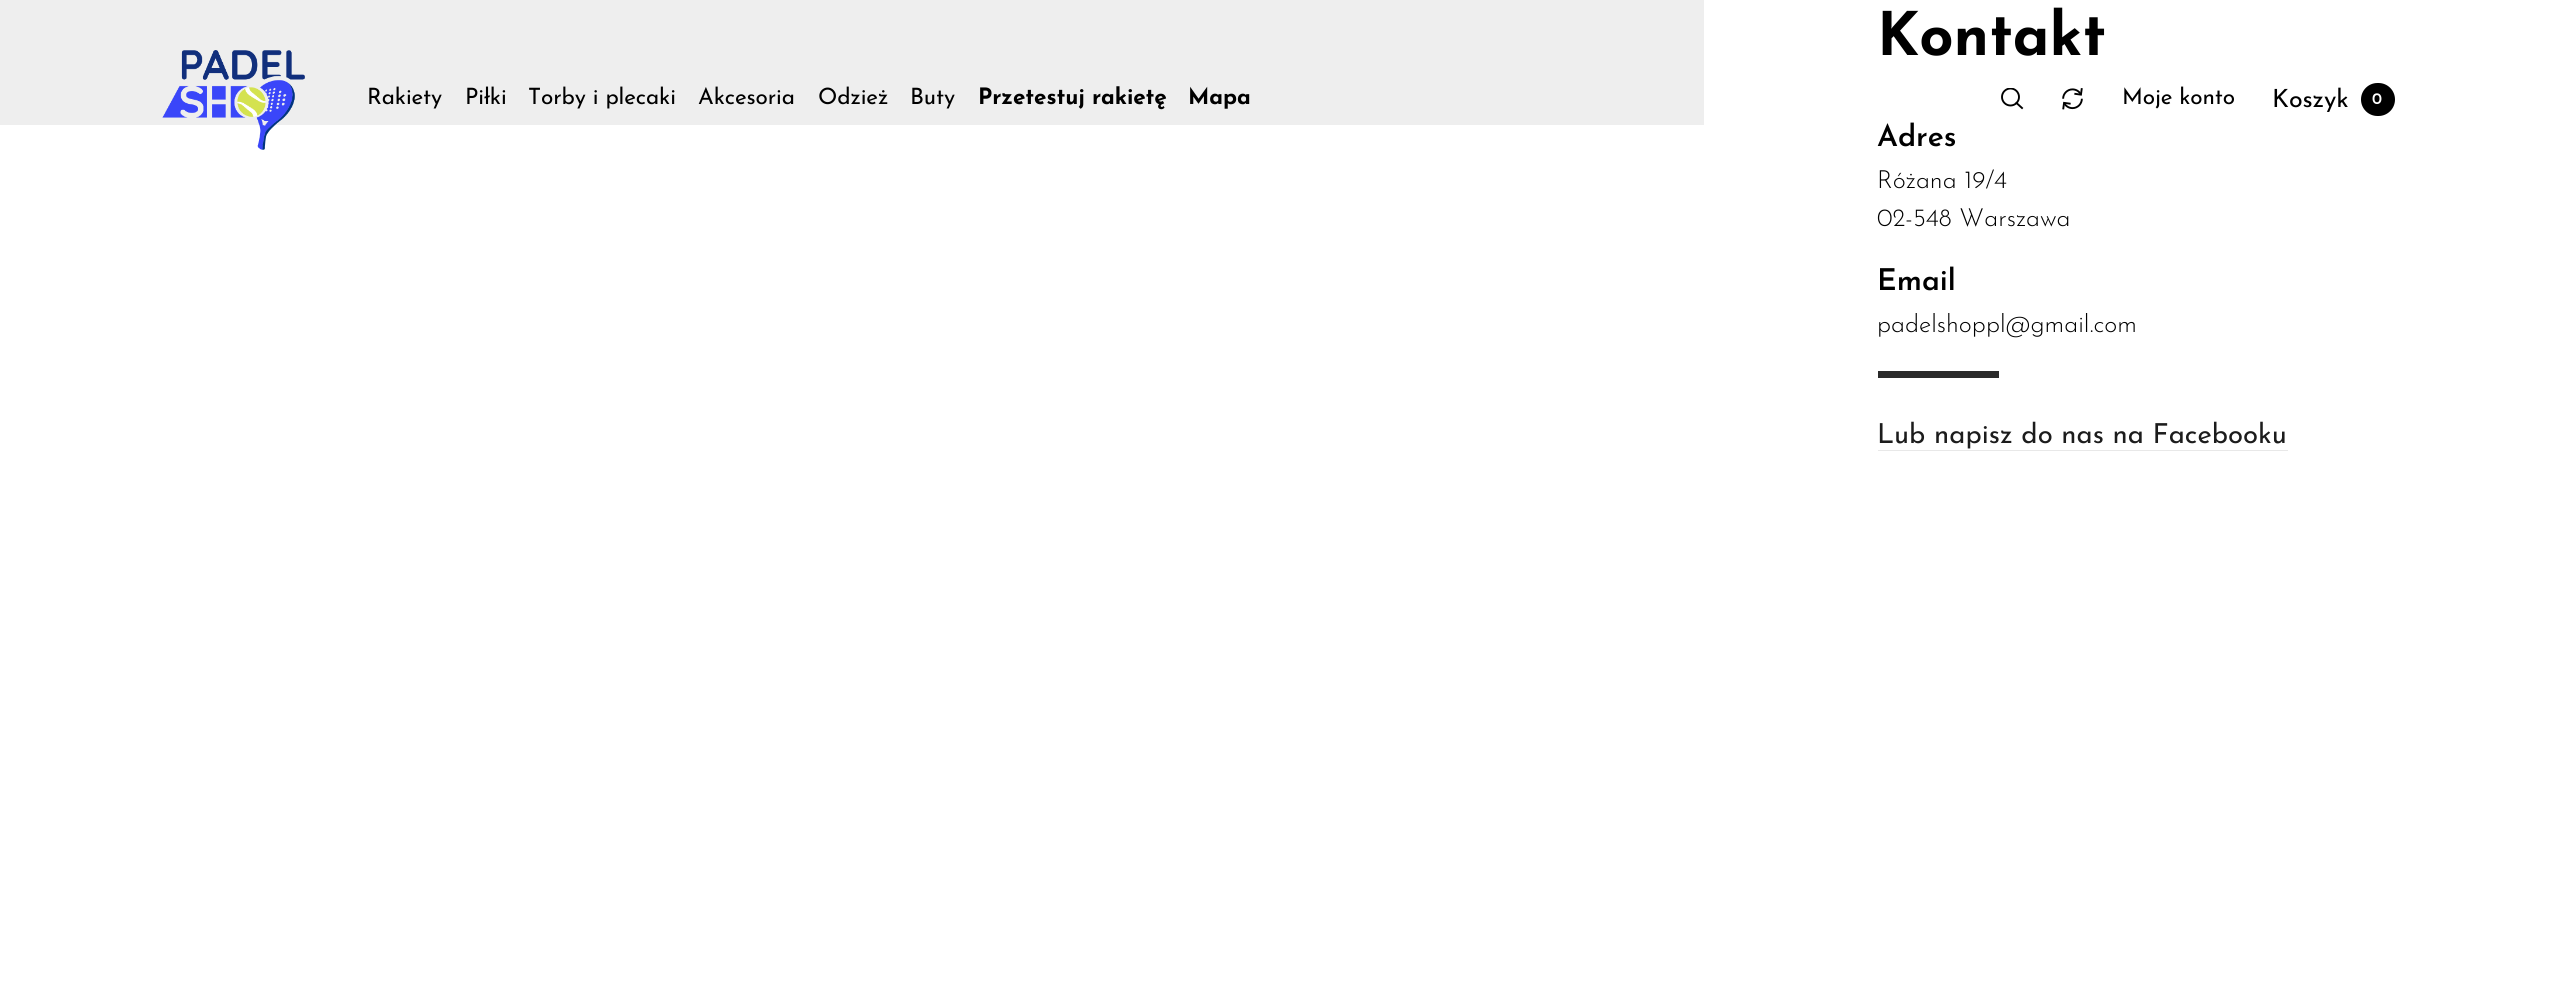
#include <cairo/cairo.h>
#include <math.h>
#include <stddef.h>


static void draw_spaced(cairo_t *cr, double x, double y, const char *s, double letter, double word) {
  cairo_move_to(cr, x, y);
  while (*s) {
    char ch[5] = {0};
    int n = 0;
    do ch[n++] = *s++; while ((*s & 0xC0) == 0x80);
    cairo_show_text(cr, ch);
    cairo_rel_move_to(cr, letter + word * (*ch == ' '), 0);
  }
}

static void rounded_rect(cairo_t *cr, double x, double y, double w, double h, double r) {
  cairo_new_sub_path(cr);
  cairo_arc(cr, x + w - r, y + h - r, r, 0, M_PI / 2);
  cairo_arc(cr, x + r, y + h - r, r, M_PI / 2, M_PI);
  cairo_arc(cr, x + r, y + r, r, M_PI, 1.5 * M_PI);
  cairo_arc(cr, x + w - r, y + r, r, 1.5 * M_PI, 2 * M_PI);
  cairo_close_path(cr);
}

static void draw_image(cairo_t *cr, const char *path, double x, double y, double w, double h) {
  cairo_surface_t *image = cairo_image_surface_create_from_png(path);
  cairo_save(cr);
  cairo_set_source_surface(cr, image, x, y);
  cairo_rectangle(cr, x, y, w, h);
  cairo_fill(cr);
  cairo_restore(cr);
  cairo_surface_destroy(image);
}

static void draw(cairo_t *cr) {
  cairo_set_source_rgb(cr, 1, 1, 1);
  cairo_paint(cr);
  cairo_set_source_rgb(cr, 238 / 255.0, 238 / 255.0, 238 / 255.0);
  cairo_rectangle(cr, 0, 0, 1704, 125);
  cairo_fill(cr);
  cairo_set_source_rgb(cr, 42 / 255.0, 42 / 255.0, 42 / 255.0);
  cairo_rectangle(cr, 1878, 371, 121, 7);
  cairo_fill(cr);
  cairo_set_source_rgb(cr, 232 / 255.0, 232 / 255.0, 232 / 255.0);
  cairo_rectangle(cr, 1878, 450, 410, 1);
  cairo_fill(cr);
  draw_image(cr, "images/1.png", 162, 50, 143, 100);
  cairo_new_path(cr);
  cairo_move_to(cr, 2022, 108);
  cairo_line_to(cr, 2016.5, 103);
  cairo_set_source_rgb(cr, 0, 0, 0);
  cairo_set_line_width(cr, 1.9);
  cairo_set_line_cap(cr, CAIRO_LINE_CAP_SQUARE);
  cairo_stroke(cr);
  cairo_save(cr);
  cairo_rectangle(cr, 2001, 88, 23, 22);
  cairo_clip(cr);
  cairo_arc(cr, 2010.5, 97, 8.5, 0, 2 * M_PI);
  cairo_set_line_cap(cr, CAIRO_LINE_CAP_BUTT);
  cairo_stroke(cr);
  cairo_restore(cr);
  draw_image(cr, "images/2.png", 2062, 88, 21, 22);
  rounded_rect(cr, 2361, 83, 34, 33, 16.5);
  cairo_fill(cr);
  cairo_select_font_face(cr, "Josefin Sans", CAIRO_FONT_SLANT_NORMAL, CAIRO_FONT_WEIGHT_BOLD);
  cairo_set_font_size(cr, 60);
  cairo_move_to(cr, 1877, 55);
  cairo_show_text(cr, "Kontakt");
  cairo_select_font_face(cr, "Josefin Sans SemiBold", CAIRO_FONT_SLANT_NORMAL, CAIRO_FONT_WEIGHT_NORMAL);
  cairo_set_font_size(cr, 30);
  cairo_move_to(cr, 1877, 146);
  cairo_show_text(cr, "Adres");
  cairo_select_font_face(cr, "Josefin Sans Light", CAIRO_FONT_SLANT_NORMAL, CAIRO_FONT_WEIGHT_NORMAL);
  cairo_set_font_size(cr, 25);
  cairo_move_to(cr, 1877, 188);
  cairo_show_text(cr, "Różana 19/4");
  cairo_move_to(cr, 1877, 226);
  cairo_show_text(cr, "02-548 Warszawa");
  cairo_select_font_face(cr, "Josefin Sans SemiBold", CAIRO_FONT_SLANT_NORMAL, CAIRO_FONT_WEIGHT_NORMAL);
  cairo_set_font_size(cr, 30);
  cairo_move_to(cr, 1877, 290);
  cairo_show_text(cr, "Email");
  cairo_select_font_face(cr, "Josefin Sans Light", CAIRO_FONT_SLANT_NORMAL, CAIRO_FONT_WEIGHT_NORMAL);
  cairo_set_font_size(cr, 25);
  cairo_move_to(cr, 1877, 332);
  cairo_show_text(cr, "padelshoppl@gmail.com");
  cairo_select_font_face(cr, "Josefin Sans", CAIRO_FONT_SLANT_NORMAL, CAIRO_FONT_WEIGHT_NORMAL);
  cairo_set_font_size(cr, 27.5);
  cairo_set_source_rgb(cr, 28 / 255.0, 28 / 255.0, 28 / 255.0);
  cairo_move_to(cr, 1877, 443);
  cairo_show_text(cr, "Lub napisz do nas na Facebooku");
  cairo_set_font_size(cr, 22.5);
  cairo_set_source_rgb(cr, 0, 0, 0);
  draw_spaced(cr, 367, 104, "Rakiety", -0.1, 0);
  draw_spaced(cr, 465, 104, "Piłki", -0.1, 0);
  draw_spaced(cr, 528, 104, "Torby i plecaki", -0.1, 0);
  draw_spaced(cr, 698, 104, "Akcesoria", -0.1, 0);
  draw_spaced(cr, 818, 104, "Odzież", -0.1, 0);
  draw_spaced(cr, 910, 104, "Buty", -0.1, 0);
  cairo_select_font_face(cr, "Josefin Sans", CAIRO_FONT_SLANT_NORMAL, CAIRO_FONT_WEIGHT_BOLD);
  draw_spaced(cr, 978, 104, "Przetestuj rakietę", -0.1, 0);
  draw_spaced(cr, 1188, 104, "Mapa", -0.1, 0);
  cairo_select_font_face(cr, "Josefin Sans", CAIRO_FONT_SLANT_NORMAL, CAIRO_FONT_WEIGHT_NORMAL);
  draw_spaced(cr, 2122, 104, "Moje konto", -0.1, 0);
  cairo_set_font_size(cr, 25);
  draw_spaced(cr, 2272, 107, "Koszyk", -0.1, 0);
  cairo_select_font_face(cr, "Josefin Sans SemiBold", CAIRO_FONT_SLANT_NORMAL, CAIRO_FONT_WEIGHT_NORMAL);
  cairo_set_font_size(cr, 16);
  cairo_set_source_rgb(cr, 1, 1, 1);
  cairo_move_to(cr, 2372, 104);
  cairo_show_text(cr, "0");
}

int main(void) {
  cairo_surface_t *surface = cairo_image_surface_create(CAIRO_FORMAT_RGB24, 2554, 1006);
  cairo_t *cr = cairo_create(surface);
  cairo_font_options_t *options = cairo_font_options_create();
  cairo_font_options_set_hint_metrics(options, CAIRO_HINT_METRICS_OFF);
  cairo_font_options_set_hint_style(options, CAIRO_HINT_STYLE_NONE);
  cairo_set_font_options(cr, options);
  cairo_set_miter_limit(cr, 4);
  draw(cr);
  cairo_surface_write_to_png(surface, "out.png");
  cairo_font_options_destroy(options);
  cairo_destroy(cr);
  cairo_surface_destroy(surface);
  return 0;
}
